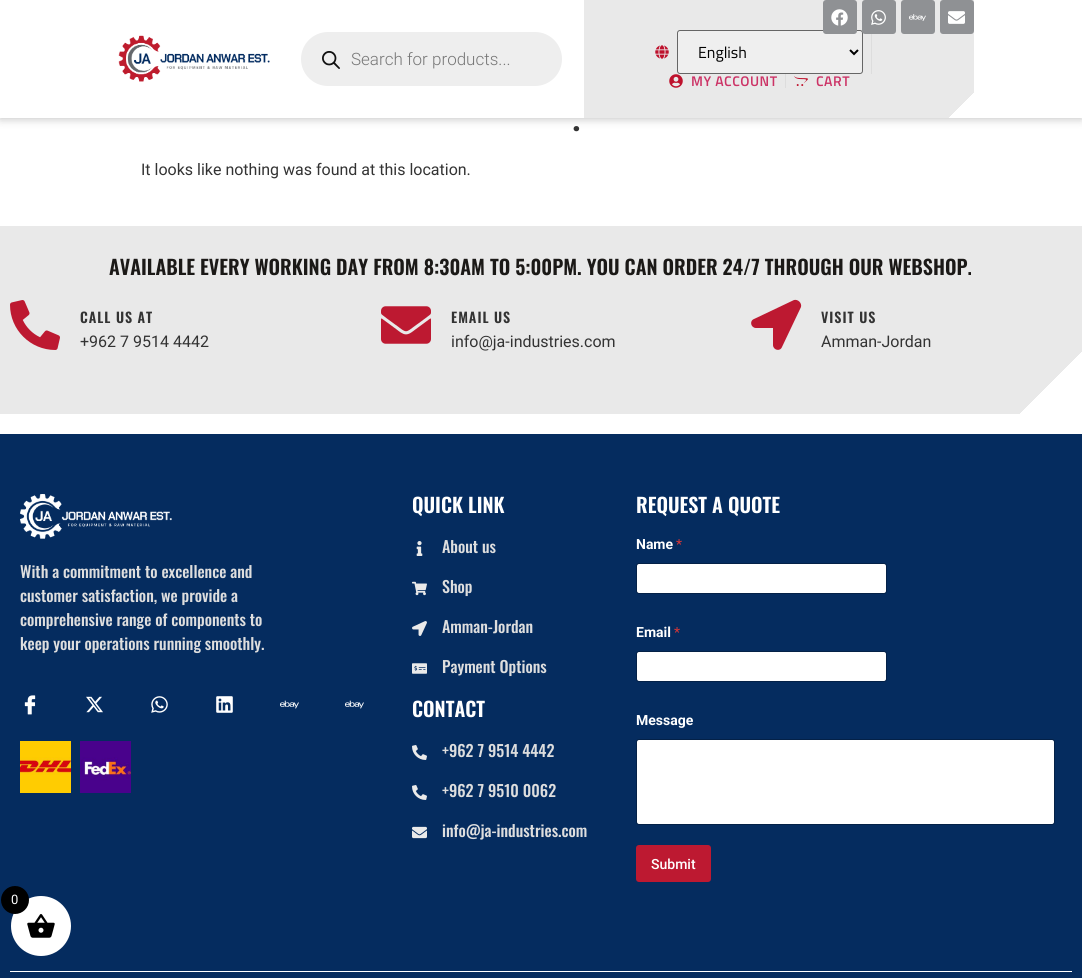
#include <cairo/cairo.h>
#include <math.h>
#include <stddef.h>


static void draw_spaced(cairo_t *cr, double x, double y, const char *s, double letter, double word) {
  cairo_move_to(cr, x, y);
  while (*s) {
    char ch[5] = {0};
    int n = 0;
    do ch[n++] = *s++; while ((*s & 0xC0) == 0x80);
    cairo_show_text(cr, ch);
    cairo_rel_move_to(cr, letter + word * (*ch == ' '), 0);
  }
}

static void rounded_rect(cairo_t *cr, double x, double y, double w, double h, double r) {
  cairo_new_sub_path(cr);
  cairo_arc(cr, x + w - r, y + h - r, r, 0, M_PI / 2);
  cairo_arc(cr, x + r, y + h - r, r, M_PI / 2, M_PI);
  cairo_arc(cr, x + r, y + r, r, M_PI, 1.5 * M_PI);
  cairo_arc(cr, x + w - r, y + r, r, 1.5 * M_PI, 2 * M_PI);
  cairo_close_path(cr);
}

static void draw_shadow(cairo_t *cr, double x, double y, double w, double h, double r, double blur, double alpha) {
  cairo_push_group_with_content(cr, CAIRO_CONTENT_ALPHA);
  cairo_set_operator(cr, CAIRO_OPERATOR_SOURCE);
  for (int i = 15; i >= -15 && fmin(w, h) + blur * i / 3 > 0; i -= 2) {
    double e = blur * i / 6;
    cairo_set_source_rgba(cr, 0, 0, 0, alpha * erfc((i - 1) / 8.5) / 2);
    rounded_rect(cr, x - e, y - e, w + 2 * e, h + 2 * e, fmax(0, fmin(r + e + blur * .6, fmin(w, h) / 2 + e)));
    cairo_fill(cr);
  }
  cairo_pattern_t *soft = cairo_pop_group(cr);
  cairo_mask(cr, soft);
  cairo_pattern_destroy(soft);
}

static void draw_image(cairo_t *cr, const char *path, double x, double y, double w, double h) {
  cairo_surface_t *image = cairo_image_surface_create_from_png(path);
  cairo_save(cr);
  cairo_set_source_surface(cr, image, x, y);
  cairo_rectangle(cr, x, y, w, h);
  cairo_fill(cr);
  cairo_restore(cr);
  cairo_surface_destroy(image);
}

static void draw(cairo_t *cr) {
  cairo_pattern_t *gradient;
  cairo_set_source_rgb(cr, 1, 1, 1);
  cairo_paint(cr);
  cairo_set_source_rgb(cr, 0, 0, 0);
  draw_shadow(cr, 0, 0, 1082, 118, 0, 5, 0.28);
  cairo_set_source_rgb(cr, 1, 1, 1);
  cairo_rectangle(cr, 0, 0, 1082, 118);
  cairo_fill(cr);
  draw_image(cr, "images/1.png", 118, 35, 152, 47);
  cairo_set_source_rgb(cr, 238 / 255.0, 238 / 255.0, 238 / 255.0);
  rounded_rect(cr, 301, 32, 261, 54, 27);
  cairo_fill(cr);
  draw_image(cr, "images/2.png", 322, 51, 18, 18);
  gradient = cairo_pattern_create_linear(652, -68, 906, 186);
  cairo_pattern_add_color_stop_rgba(gradient, 0.95, 233 / 255.0, 233 / 255.0, 233 / 255.0, 1);
  cairo_pattern_add_color_stop_rgba(gradient, 0.95, 1, 1, 1, 1);
  cairo_set_source(cr, gradient);
  cairo_pattern_destroy(gradient);
  cairo_rectangle(cr, 584, 0, 390, 118);
  cairo_fill(cr);
  cairo_set_source_rgb(cr, 239 / 255.0, 239 / 255.0, 239 / 255.0);
  rounded_rect(cr, 677.5, 30.5, 185, 43, 2.5);
  cairo_fill_preserve(cr);
  cairo_set_source_rgb(cr, 102 / 255.0, 102 / 255.0, 102 / 255.0);
  cairo_set_line_width(cr, 1);
  cairo_stroke(cr);
  cairo_set_source_rgb(cr, 143 / 255.0, 145 / 255.0, 148 / 255.0);
  rounded_rect(cr, 823, 0, 34, 34, 3);
  cairo_fill(cr);
  draw_image(cr, "images/3.png", 831, 9, 17, 17);
  cairo_set_source_rgb(cr, 221 / 255.0, 221 / 255.0, 221 / 255.0);
  cairo_rectangle(cr, 871, 30, 1, 44);
  cairo_fill(cr);
  cairo_set_source_rgb(cr, 143 / 255.0, 145 / 255.0, 148 / 255.0);
  rounded_rect(cr, 862, 0, 34, 34, 3);
  cairo_fill(cr);
  draw_image(cr, "images/4.png", 871, 10, 15, 15);
  rounded_rect(cr, 901, 0, 34, 34, 3);
  cairo_fill(cr);
  draw_image(cr, "images/5.png", 909, 14, 17, 7);
  rounded_rect(cr, 940, 0, 34, 34, 3);
  cairo_fill(cr);
  draw_image(cr, "images/6.png", 948, 11, 17, 13);
  draw_image(cr, "images/7.png", 655, 45, 14, 14);
  cairo_new_path(cr);
  cairo_move_to(cr, 850, 50);
  cairo_line_to(cr, 854, 54);
  cairo_line_to(cr, 858, 50);
  cairo_set_source_rgb(cr, 0, 0, 0);
  cairo_set_line_width(cr, 2);
  cairo_stroke(cr);
  draw_image(cr, "images/8.png", 669, 74, 14, 14);
  cairo_set_source_rgb(cr, 221 / 255.0, 221 / 255.0, 221 / 255.0);
  cairo_rectangle(cr, 785, 74, 1, 14);
  cairo_fill(cr);
  draw_image(cr, "images/9.png", 794, 76, 14, 10);
  gradient = cairo_pattern_create_linear(224, 2.5, 859, 638);
  cairo_pattern_add_color_stop_rgba(gradient, 0.95, 233 / 255.0, 233 / 255.0, 233 / 255.0, 1);
  cairo_pattern_add_color_stop_rgba(gradient, 0.95, 1, 1, 1, 1);
  cairo_set_source(cr, gradient);
  cairo_pattern_destroy(gradient);
  cairo_rectangle(cr, 0, 226, 1082, 188);
  cairo_fill(cr);
  draw_image(cr, "images/10.png", 10, 300, 50, 50);
  draw_image(cr, "images/11.png", 381, 306, 50, 38);
  cairo_set_source_rgb(cr, 189 / 255.0, 25 / 255.0, 49 / 255.0);
  cairo_new_path(cr);
  cairo_move_to(cr, 794, 300);
  cairo_line_to(cr, 754, 319);
  cairo_curve_to(cr, 749, 321, 751, 328, 756, 328);
  cairo_line_to(cr, 773, 328);
  cairo_line_to(cr, 773, 345);
  cairo_curve_to(cr, 773, 350, 780, 352, 782, 347);
  cairo_line_to(cr, 801, 307);
  cairo_curve_to(cr, 802, 303, 798, 299, 794, 300);
  cairo_close_path(cr);
  cairo_fill(cr);
  cairo_set_source_rgb(cr, 5 / 255.0, 44 / 255.0, 95 / 255.0);
  cairo_rectangle(cr, 0, 434, 1082, 544);
  cairo_fill(cr);
  draw_image(cr, "images/12.png", 20, 494, 152, 45);
  draw_image(cr, "images/13.png", 24, 695, 12, 20);
  draw_image(cr, "images/14.png", 86, 696, 17, 17);
  draw_image(cr, "images/15.png", 151, 696, 17, 17);
  draw_image(cr, "images/16.png", 216, 696, 17, 17);
  draw_image(cr, "images/17.png", 280, 700, 19, 9);
  draw_image(cr, "images/17.png", 345, 700, 19, 9);
  draw_image(cr, "images/18.png", 20, 741, 51, 52);
  draw_image(cr, "images/19.png", 80, 741, 51, 52);
  draw_image(cr, "images/20.png", 416, 541, 7, 15);
  draw_image(cr, "images/21.png", 412, 581, 15, 15);
  draw_image(cr, "images/22.png", 412, 621, 15, 15);
  draw_image(cr, "images/23.png", 412, 663, 15, 11);
  draw_image(cr, "images/24.png", 412, 745, 15, 15);
  draw_image(cr, "images/24.png", 412, 785, 15, 15);
  draw_image(cr, "images/25.png", 412, 826, 15, 13);
  cairo_set_source_rgb(cr, 1, 1, 1);
  rounded_rect(cr, 637, 564, 249, 29, 2);
  cairo_fill(cr);
  rounded_rect(cr, 636.5, 563.5, 250, 30, 2.5);
  cairo_set_source_rgba(cr, 0, 0, 0, 0.25);
  cairo_set_line_width(cr, 1);
  cairo_stroke(cr);
  cairo_set_source_rgb(cr, 1, 1, 1);
  rounded_rect(cr, 637, 652, 249, 29, 2);
  cairo_fill(cr);
  rounded_rect(cr, 636.5, 651.5, 250, 30, 2.5);
  cairo_set_source_rgba(cr, 0, 0, 0, 0.25);
  cairo_stroke(cr);
  cairo_set_source_rgb(cr, 1, 1, 1);
  rounded_rect(cr, 637, 740, 417, 84, 2);
  cairo_fill(cr);
  rounded_rect(cr, 636.5, 739.5, 418, 85, 2.5);
  cairo_set_source_rgba(cr, 0, 0, 0, 0.25);
  cairo_stroke(cr);
  cairo_set_source_rgb(cr, 189 / 255.0, 25 / 255.0, 49 / 255.0);
  rounded_rect(cr, 636, 845, 75, 37, 3);
  cairo_fill(cr);
  cairo_set_source_rgb(cr, 1, 1, 1);
  cairo_rectangle(cr, 10, 971, 1062, 1);
  cairo_fill(cr);
  cairo_arc(cr, 41, 926, 30, 0, 2 * M_PI);
  cairo_fill(cr);
  cairo_set_source_rgb(cr, 0, 0, 0);
  cairo_arc(cr, 15, 900, 14, 0, 2 * M_PI);
  cairo_fill(cr);
  draw_image(cr, "images/26.png", 27, 914, 28, 24);
  cairo_select_font_face(cr, "Roboto Light", CAIRO_FONT_SLANT_NORMAL, CAIRO_FONT_WEIGHT_NORMAL);
  cairo_set_font_size(cr, 17);
  cairo_set_source_rgb(cr, 119 / 255.0, 119 / 255.0, 119 / 255.0);
  cairo_move_to(cr, 351, 65);
  cairo_show_text(cr, "Search for products...");
  cairo_select_font_face(cr, "Titillium Web", CAIRO_FONT_SLANT_NORMAL, CAIRO_FONT_WEIGHT_NORMAL);
  cairo_set_font_size(cr, 16);
  cairo_set_source_rgb(cr, 0, 0, 0);
  cairo_move_to(cr, 698, 58);
  cairo_show_text(cr, "English");
  cairo_select_font_face(cr, "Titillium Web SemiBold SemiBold", CAIRO_FONT_SLANT_NORMAL, CAIRO_FONT_WEIGHT_NORMAL);
  cairo_set_font_size(cr, 14);
  cairo_set_source_rgb(cr, 204 / 255.0, 51 / 255.0, 102 / 255.0);
  draw_spaced(cr, 691, 86, "MY ACCOUNT", 0.5, 0);
  draw_spaced(cr, 816, 86, "CART", 0.5, 0);
  cairo_select_font_face(cr, "Roboto Medium", CAIRO_FONT_SLANT_NORMAL, CAIRO_FONT_WEIGHT_NORMAL);
  cairo_set_font_size(cr, 40);
  cairo_set_source_rgb(cr, 51 / 255.0, 51 / 255.0, 51 / 255.0);
  cairo_move_to(cr, 571, 131);
  cairo_show_text(cr, ".");
  cairo_select_font_face(cr, "Roboto", CAIRO_FONT_SLANT_NORMAL, CAIRO_FONT_WEIGHT_NORMAL);
  cairo_set_font_size(cr, 16);
  cairo_move_to(cr, 141, 175);
  cairo_show_text(cr, "It looks like nothing was found at this location.");
  cairo_select_font_face(cr, "Oswald SemiBold", CAIRO_FONT_SLANT_NORMAL, CAIRO_FONT_WEIGHT_NORMAL);
  cairo_set_font_size(cr, 20);
  cairo_set_source_rgb(cr, 27 / 255.0, 25 / 255.0, 23 / 255.0);
  cairo_move_to(cr, 109, 275);
  cairo_show_text(cr, "AVAILABLE EVERY WORKING DAY FROM 8:30AM TO 5:00PM. YOU CAN ORDER 24/7 THROUGH OUR WEBSHOP.");
  cairo_set_font_size(cr, 14);
  cairo_set_source_rgb(cr, 51 / 255.0, 51 / 255.0, 51 / 255.0);
  draw_spaced(cr, 80, 323, "CALL US AT", 1, 0);
  cairo_select_font_face(cr, "Roboto", CAIRO_FONT_SLANT_NORMAL, CAIRO_FONT_WEIGHT_NORMAL);
  cairo_set_font_size(cr, 16);
  cairo_move_to(cr, 80, 347);
  cairo_show_text(cr, "+962 7 9514 4442");
  cairo_select_font_face(cr, "Oswald SemiBold", CAIRO_FONT_SLANT_NORMAL, CAIRO_FONT_WEIGHT_NORMAL);
  cairo_set_font_size(cr, 14);
  draw_spaced(cr, 451, 323, "EMAIL US", 1, 0);
  cairo_select_font_face(cr, "Roboto", CAIRO_FONT_SLANT_NORMAL, CAIRO_FONT_WEIGHT_NORMAL);
  cairo_set_font_size(cr, 16);
  cairo_move_to(cr, 451, 347);
  cairo_show_text(cr, "info@ja-industries.com");
  cairo_select_font_face(cr, "Oswald SemiBold", CAIRO_FONT_SLANT_NORMAL, CAIRO_FONT_WEIGHT_NORMAL);
  cairo_set_font_size(cr, 14);
  draw_spaced(cr, 821, 323, "VISIT US", 1, 0);
  cairo_select_font_face(cr, "Roboto", CAIRO_FONT_SLANT_NORMAL, CAIRO_FONT_WEIGHT_NORMAL);
  cairo_set_font_size(cr, 16);
  cairo_move_to(cr, 821, 347);
  cairo_show_text(cr, "Amman-Jordan");
  cairo_select_font_face(cr, "Oswald Medium", CAIRO_FONT_SLANT_NORMAL, CAIRO_FONT_WEIGHT_NORMAL);
  cairo_set_source_rgb(cr, 222 / 255.0, 222 / 255.0, 222 / 255.0);
  cairo_move_to(cr, 20, 578);
  cairo_show_text(cr, "With a commitment to excellence and");
  cairo_move_to(cr, 20, 602);
  cairo_show_text(cr, "customer satisfaction, we provide a");
  cairo_move_to(cr, 20, 626);
  cairo_show_text(cr, "comprehensive range of components to");
  cairo_move_to(cr, 20, 650);
  cairo_show_text(cr, "keep your operations running smoothly.");
  cairo_select_font_face(cr, "Oswald SemiBold", CAIRO_FONT_SLANT_NORMAL, CAIRO_FONT_WEIGHT_NORMAL);
  cairo_set_font_size(cr, 20);
  cairo_set_source_rgb(cr, 1, 1, 1);
  cairo_move_to(cr, 412, 513);
  cairo_show_text(cr, "QUICK LINK");
  cairo_select_font_face(cr, "Oswald Medium", CAIRO_FONT_SLANT_NORMAL, CAIRO_FONT_WEIGHT_NORMAL);
  cairo_set_font_size(cr, 16);
  cairo_set_source_rgb(cr, 222 / 255.0, 222 / 255.0, 222 / 255.0);
  cairo_move_to(cr, 442, 553);
  cairo_show_text(cr, "About us");
  cairo_move_to(cr, 442, 593);
  cairo_show_text(cr, "Shop");
  cairo_move_to(cr, 442, 633);
  cairo_show_text(cr, "Amman-Jordan");
  cairo_move_to(cr, 442, 673);
  cairo_show_text(cr, "Payment Options");
  cairo_select_font_face(cr, "Oswald SemiBold", CAIRO_FONT_SLANT_NORMAL, CAIRO_FONT_WEIGHT_NORMAL);
  cairo_set_font_size(cr, 20);
  cairo_set_source_rgb(cr, 1, 1, 1);
  cairo_move_to(cr, 412, 717);
  cairo_show_text(cr, "CONTACT");
  cairo_select_font_face(cr, "Oswald Medium", CAIRO_FONT_SLANT_NORMAL, CAIRO_FONT_WEIGHT_NORMAL);
  cairo_set_font_size(cr, 16);
  cairo_set_source_rgb(cr, 222 / 255.0, 222 / 255.0, 222 / 255.0);
  cairo_move_to(cr, 442, 757);
  cairo_show_text(cr, "+962 7 9514 4442");
  cairo_move_to(cr, 442, 797);
  cairo_show_text(cr, "+962 7 9510 0062");
  cairo_move_to(cr, 442, 837);
  cairo_show_text(cr, "info@ja-industries.com");
  cairo_select_font_face(cr, "Oswald SemiBold", CAIRO_FONT_SLANT_NORMAL, CAIRO_FONT_WEIGHT_NORMAL);
  cairo_set_font_size(cr, 20);
  cairo_set_source_rgb(cr, 1, 1, 1);
  cairo_move_to(cr, 636, 513);
  cairo_show_text(cr, "REQUEST A QUOTE");
  cairo_select_font_face(cr, "Roboto", CAIRO_FONT_SLANT_NORMAL, CAIRO_FONT_WEIGHT_BOLD);
  cairo_set_font_size(cr, 14);
  cairo_move_to(cr, 636, 549);
  cairo_show_text(cr, "Name");
  cairo_select_font_face(cr, "Roboto", CAIRO_FONT_SLANT_NORMAL, CAIRO_FONT_WEIGHT_NORMAL);
  cairo_set_source_rgb(cr, 214 / 255.0, 54 / 255.0, 55 / 255.0);
  cairo_move_to(cr, 676, 549);
  cairo_show_text(cr, "*");
  cairo_select_font_face(cr, "Roboto", CAIRO_FONT_SLANT_NORMAL, CAIRO_FONT_WEIGHT_BOLD);
  cairo_set_source_rgb(cr, 1, 1, 1);
  cairo_move_to(cr, 636, 637);
  cairo_show_text(cr, "Email");
  cairo_select_font_face(cr, "Roboto", CAIRO_FONT_SLANT_NORMAL, CAIRO_FONT_WEIGHT_NORMAL);
  cairo_set_source_rgb(cr, 214 / 255.0, 54 / 255.0, 55 / 255.0);
  cairo_move_to(cr, 674, 637);
  cairo_show_text(cr, "*");
  cairo_select_font_face(cr, "Roboto", CAIRO_FONT_SLANT_NORMAL, CAIRO_FONT_WEIGHT_BOLD);
  cairo_set_source_rgb(cr, 1, 1, 1);
  cairo_move_to(cr, 636, 725);
  cairo_show_text(cr, "Message");
  cairo_select_font_face(cr, "Roboto Medium", CAIRO_FONT_SLANT_NORMAL, CAIRO_FONT_WEIGHT_NORMAL);
  cairo_move_to(cr, 651, 869);
  cairo_show_text(cr, "Submit");
  cairo_select_font_face(cr, "Roboto", CAIRO_FONT_SLANT_NORMAL, CAIRO_FONT_WEIGHT_NORMAL);
  cairo_set_font_size(cr, 13);
  cairo_move_to(cr, 11, 904);
  cairo_show_text(cr, "0");
}

int main(void) {
  cairo_surface_t *surface = cairo_image_surface_create(CAIRO_FORMAT_RGB24, 1082, 978);
  cairo_t *cr = cairo_create(surface);
  cairo_font_options_t *options = cairo_font_options_create();
  cairo_font_options_set_hint_metrics(options, CAIRO_HINT_METRICS_OFF);
  cairo_font_options_set_hint_style(options, CAIRO_HINT_STYLE_NONE);
  cairo_set_font_options(cr, options);
  cairo_set_miter_limit(cr, 4);
  draw(cr);
  cairo_surface_write_to_png(surface, "out.png");
  cairo_font_options_destroy(options);
  cairo_destroy(cr);
  cairo_surface_destroy(surface);
  return 0;
}
